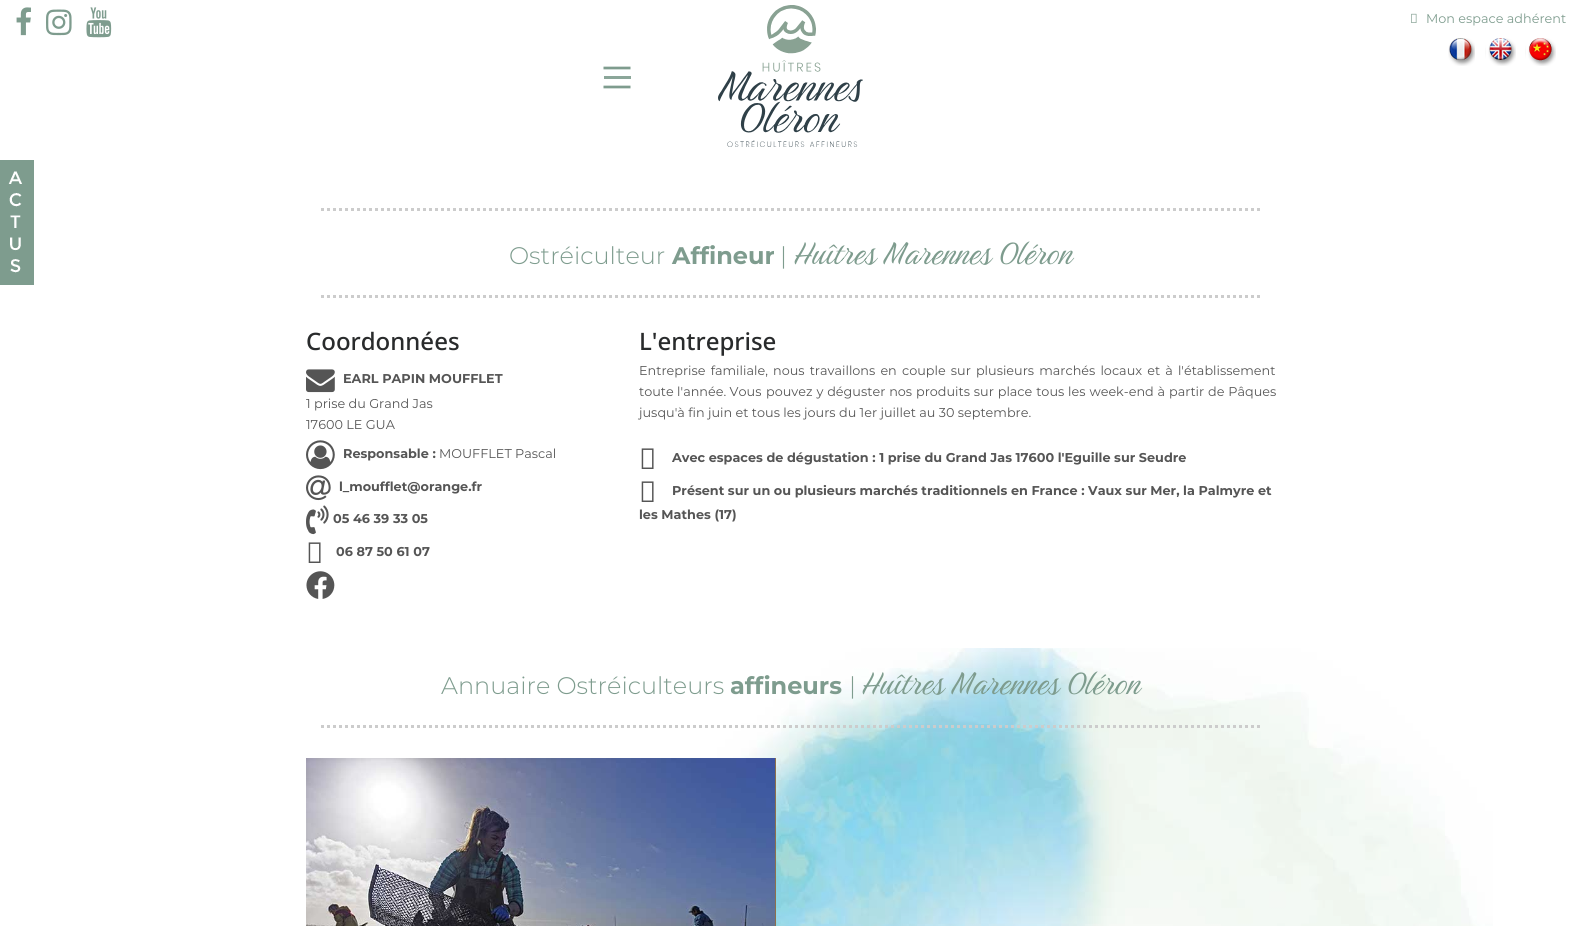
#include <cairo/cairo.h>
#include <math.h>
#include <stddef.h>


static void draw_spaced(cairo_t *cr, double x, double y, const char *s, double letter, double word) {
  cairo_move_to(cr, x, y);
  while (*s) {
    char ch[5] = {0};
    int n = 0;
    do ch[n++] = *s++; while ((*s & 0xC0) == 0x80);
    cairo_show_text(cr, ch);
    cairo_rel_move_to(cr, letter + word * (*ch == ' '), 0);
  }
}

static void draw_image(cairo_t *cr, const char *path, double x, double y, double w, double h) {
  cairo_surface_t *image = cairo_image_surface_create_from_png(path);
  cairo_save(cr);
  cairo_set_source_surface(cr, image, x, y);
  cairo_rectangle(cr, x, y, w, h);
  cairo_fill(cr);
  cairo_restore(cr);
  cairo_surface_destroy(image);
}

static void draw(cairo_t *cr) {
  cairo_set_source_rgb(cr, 1, 1, 1);
  cairo_paint(cr);
  cairo_set_source_rgb(cr, 126 / 255.0, 156 / 255.0, 142 / 255.0);
  cairo_rectangle(cr, 0, 160, 34, 125);
  cairo_fill(cr);
  draw_image(cr, "images/1.png", 8, 171, 14, 102);
  draw_image(cr, "images/2.png", 16, 7, 15, 29);
  draw_image(cr, "images/3.png", 46, 9, 26, 27);
  draw_image(cr, "images/4.png", 86, 7, 26, 31);
  draw_image(cr, "images/5.png", 718, 5, 145, 142);
  draw_image(cr, "images/6.png", 1411, 13, 6, 10);
  draw_image(cr, "images/7.png", 1448, 38, 27, 28);
  draw_image(cr, "images/8.png", 1485, 38, 31, 28);
  draw_image(cr, "images/9.png", 1525, 38, 31, 28);
  cairo_new_path(cr);
  cairo_move_to(cr, 603.5, 68);
  cairo_line_to(cr, 630.5, 68);
  cairo_set_line_width(cr, 2.7);
  cairo_stroke(cr);
  cairo_set_source_rgb(cr, 139 / 255.0, 166 / 255.0, 153 / 255.0);
  cairo_rectangle(cr, 604, 76, 27, 3);
  cairo_fill(cr);
  cairo_new_path(cr);
  cairo_move_to(cr, 603.5, 87);
  cairo_line_to(cr, 630.5, 87);
  cairo_set_source_rgb(cr, 126 / 255.0, 156 / 255.0, 142 / 255.0);
  cairo_stroke(cr);
  cairo_new_path(cr);
  cairo_move_to(cr, 321, 209.5);
  cairo_line_to(cr, 1261, 209.5);
  cairo_set_source_rgb(cr, 204 / 255.0, 204 / 255.0, 204 / 255.0);
  cairo_set_line_width(cr, 3);
  cairo_set_dash(cr, (double[]){3, 3}, 2, 0);
  cairo_stroke(cr);
  cairo_new_path(cr);
  cairo_move_to(cr, 321, 296.5);
  cairo_line_to(cr, 1261, 296.5);
  cairo_stroke(cr);
  draw_image(cr, "images/10.png", 306, 369, 29, 24);
  draw_image(cr, "images/11.png", 306, 440, 29, 30);
  draw_image(cr, "images/12.png", 306, 475, 25, 26);
  draw_image(cr, "images/13.png", 306, 505, 23, 30);
  draw_image(cr, "images/14.png", 308, 542, 13, 21);
  draw_image(cr, "images/15.png", 306, 571, 29, 28);
  draw_image(cr, "images/14.png", 641, 448, 13, 21);
  draw_image(cr, "images/14.png", 641, 481, 13, 21);
  draw_image(cr, "images/16.png", 638, 648, 855, 278);
  cairo_new_path(cr);
  cairo_move_to(cr, 321, 726.5);
  cairo_line_to(cr, 1261, 726.5);
  cairo_stroke(cr);
  cairo_set_source_rgb(cr, 141 / 255.0, 111 / 255.0, 76 / 255.0);
  cairo_rectangle(cr, 775, 758, 1, 168);
  cairo_fill(cr);
  draw_image(cr, "images/17.png", 306, 758, 469, 168);
  cairo_select_font_face(cr, "Montserrat", CAIRO_FONT_SLANT_NORMAL, CAIRO_FONT_WEIGHT_NORMAL);
  cairo_set_font_size(cr, 12.8);
  cairo_set_source_rgb(cr, 126 / 255.0, 156 / 255.0, 142 / 255.0);
  cairo_move_to(cr, 1426, 23);
  cairo_show_text(cr, "Mon espace adhérent");
  cairo_select_font_face(cr, "Montserrat Light", CAIRO_FONT_SLANT_NORMAL, CAIRO_FONT_WEIGHT_NORMAL);
  cairo_set_font_size(cr, 24);
  cairo_move_to(cr, 509, 264);
  cairo_show_text(cr, "Ostréiculteur");
  cairo_select_font_face(cr, "Montserrat", CAIRO_FONT_SLANT_NORMAL, CAIRO_FONT_WEIGHT_BOLD);
  cairo_move_to(cr, 672, 264);
  cairo_show_text(cr, "Affineur");
  cairo_select_font_face(cr, "Montserrat Light", CAIRO_FONT_SLANT_NORMAL, CAIRO_FONT_WEIGHT_NORMAL);
  cairo_move_to(cr, 780, 264);
  cairo_show_text(cr, "|");
  cairo_select_font_face(cr, "Birthstone", CAIRO_FONT_SLANT_NORMAL, CAIRO_FONT_WEIGHT_NORMAL);
  cairo_set_font_size(cr, 40);
  cairo_move_to(cr, 794, 264);
  cairo_show_text(cr, "Huîtres Marennes Oléron");
  cairo_select_font_face(cr, "Noto Sans Medium", CAIRO_FONT_SLANT_NORMAL, CAIRO_FONT_WEIGHT_NORMAL);
  cairo_set_font_size(cr, 24);
  cairo_set_source_rgb(cr, 41 / 255.0, 43 / 255.0, 44 / 255.0);
  cairo_move_to(cr, 306, 350);
  cairo_show_text(cr, "Coordonnées");
  cairo_select_font_face(cr, "Montserrat", CAIRO_FONT_SLANT_NORMAL, CAIRO_FONT_WEIGHT_BOLD);
  cairo_set_font_size(cr, 12.8);
  cairo_set_source_rgb(cr, 85 / 255.0, 85 / 255.0, 85 / 255.0);
  cairo_move_to(cr, 343, 383);
  cairo_show_text(cr, "EARL PAPIN MOUFFLET");
  cairo_select_font_face(cr, "Montserrat", CAIRO_FONT_SLANT_NORMAL, CAIRO_FONT_WEIGHT_NORMAL);
  cairo_move_to(cr, 306, 408);
  cairo_show_text(cr, "1 prise du Grand Jas");
  cairo_move_to(cr, 306, 429);
  cairo_show_text(cr, "17600 LE GUA");
  cairo_select_font_face(cr, "Montserrat", CAIRO_FONT_SLANT_NORMAL, CAIRO_FONT_WEIGHT_BOLD);
  cairo_move_to(cr, 343, 458);
  cairo_show_text(cr, "Responsable :");
  cairo_select_font_face(cr, "Montserrat", CAIRO_FONT_SLANT_NORMAL, CAIRO_FONT_WEIGHT_NORMAL);
  cairo_move_to(cr, 439, 458);
  cairo_show_text(cr, "MOUFFLET Pascal");
  cairo_select_font_face(cr, "Montserrat", CAIRO_FONT_SLANT_NORMAL, CAIRO_FONT_WEIGHT_BOLD);
  cairo_move_to(cr, 339, 491);
  cairo_show_text(cr, "l_moufflet@orange.fr");
  cairo_move_to(cr, 333, 523);
  cairo_show_text(cr, "05 46 39 33 05");
  cairo_move_to(cr, 336, 556);
  cairo_show_text(cr, "06 87 50 61 07");
  cairo_select_font_face(cr, "Noto Sans Medium", CAIRO_FONT_SLANT_NORMAL, CAIRO_FONT_WEIGHT_NORMAL);
  cairo_set_font_size(cr, 24);
  cairo_set_source_rgb(cr, 41 / 255.0, 43 / 255.0, 44 / 255.0);
  cairo_move_to(cr, 639, 350);
  cairo_show_text(cr, "L'entreprise");
  cairo_select_font_face(cr, "Montserrat", CAIRO_FONT_SLANT_NORMAL, CAIRO_FONT_WEIGHT_NORMAL);
  cairo_set_font_size(cr, 12.8);
  cairo_set_source_rgb(cr, 85 / 255.0, 85 / 255.0, 85 / 255.0);
  draw_spaced(cr, 639, 375, "Entreprise familiale, nous travaillons en", 0, 1.75);
  draw_spaced(cr, 902, 375, "couple sur plusieurs marchés locaux et à l'établissement", 0, 1.75);
  cairo_move_to(cr, 639, 396);
  cairo_show_text(cr, "toute l'année. Vous");
  draw_spaced(cr, 766, 396, "pouvez y déguster nos produits sur place tous les week-end à partir de Pâques", 0, 0.5);
  cairo_move_to(cr, 639, 417);
  cairo_show_text(cr, "jusqu'à fin juin et tous les jours du 1er juillet au 30 septembre.");
  cairo_select_font_face(cr, "Montserrat", CAIRO_FONT_SLANT_NORMAL, CAIRO_FONT_WEIGHT_BOLD);
  cairo_move_to(cr, 672, 462);
  cairo_show_text(cr, "Avec espaces de dégustation : 1 prise du Grand Jas 17600 l'Eguille sur Seudre");
  cairo_move_to(cr, 672, 495);
  cairo_show_text(cr, "Présent sur un ou plusieurs marchés traditionnels en France : Vaux sur Mer, la Palmyre et");
  cairo_move_to(cr, 639, 519);
  cairo_show_text(cr, "les Mathes (17)");
  cairo_select_font_face(cr, "Montserrat Light", CAIRO_FONT_SLANT_NORMAL, CAIRO_FONT_WEIGHT_NORMAL);
  cairo_set_font_size(cr, 24);
  cairo_set_source_rgb(cr, 126 / 255.0, 156 / 255.0, 142 / 255.0);
  cairo_move_to(cr, 441, 694);
  cairo_show_text(cr, "Annuaire Ostréiculteurs");
  cairo_select_font_face(cr, "Montserrat", CAIRO_FONT_SLANT_NORMAL, CAIRO_FONT_WEIGHT_BOLD);
  cairo_move_to(cr, 730, 694);
  cairo_show_text(cr, "affineurs");
  cairo_select_font_face(cr, "Montserrat Light", CAIRO_FONT_SLANT_NORMAL, CAIRO_FONT_WEIGHT_NORMAL);
  cairo_move_to(cr, 849, 694);
  cairo_show_text(cr, "|");
  cairo_select_font_face(cr, "Birthstone", CAIRO_FONT_SLANT_NORMAL, CAIRO_FONT_WEIGHT_NORMAL);
  cairo_set_font_size(cr, 40);
  cairo_move_to(cr, 862, 694);
  cairo_show_text(cr, "Huîtres Marennes Oléron");
}

int main(void) {
  cairo_surface_t *surface = cairo_image_surface_create(CAIRO_FORMAT_RGB24, 1581, 926);
  cairo_t *cr = cairo_create(surface);
  cairo_font_options_t *options = cairo_font_options_create();
  cairo_font_options_set_hint_metrics(options, CAIRO_HINT_METRICS_OFF);
  cairo_font_options_set_hint_style(options, CAIRO_HINT_STYLE_NONE);
  cairo_set_font_options(cr, options);
  cairo_set_miter_limit(cr, 4);
  draw(cr);
  cairo_surface_write_to_png(surface, "out.png");
  cairo_font_options_destroy(options);
  cairo_destroy(cr);
  cairo_surface_destroy(surface);
  return 0;
}
